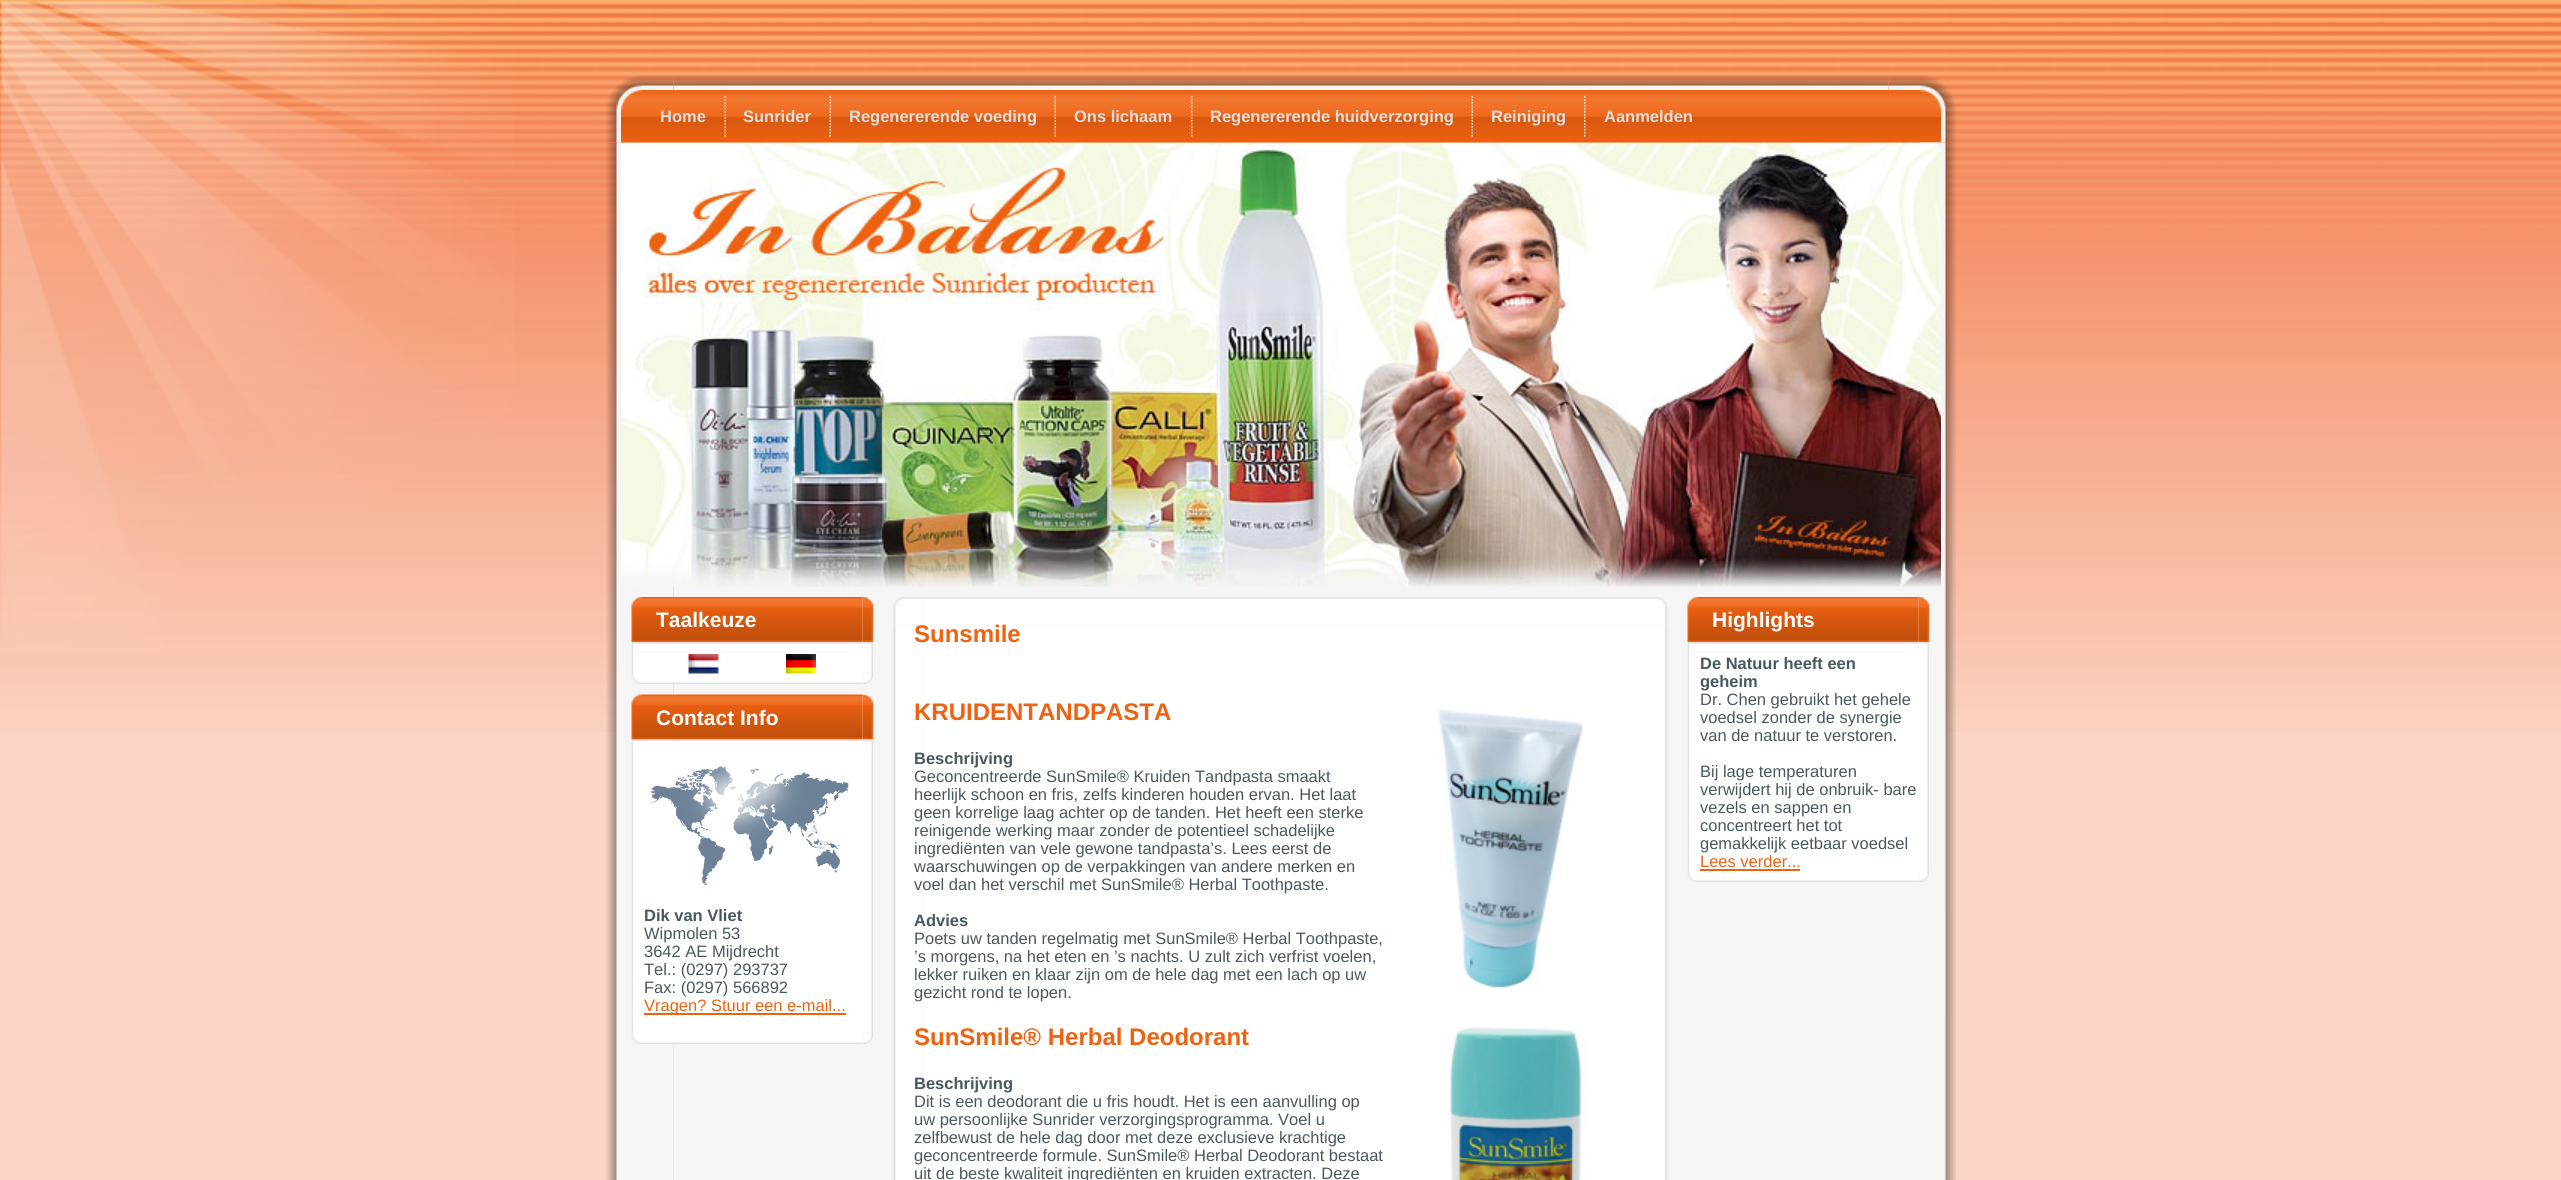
#include <cairo/cairo.h>
#include <math.h>
#include <stddef.h>


static void draw_image(cairo_t *cr, const char *path, double x, double y, double w, double h) {
  cairo_surface_t *image = cairo_image_surface_create_from_png(path);
  cairo_save(cr);
  cairo_set_source_surface(cr, image, x, y);
  cairo_rectangle(cr, x, y, w, h);
  cairo_fill(cr);
  cairo_restore(cr);
  cairo_surface_destroy(image);
}

static void draw(cairo_t *cr) {
  cairo_set_source_rgb(cr, 251 / 255.0, 213 / 255.0, 197 / 255.0);
  cairo_paint(cr);
  draw_image(cr, "images/1.png", 0, 0, 2561, 732);
  draw_image(cr, "images/2.png", 1, 1, 513, 651);
  draw_image(cr, "images/3.png", 606, 75, 68, 68);
  draw_image(cr, "images/5.png", 1888, 75, 68, 68);
  draw_image(cr, "images/4.png", 673, 75, 1216, 68);
  draw_image(cr, "images/6.png", 606, 142, 68, 1038);
  draw_image(cr, "images/46.png", 1888, 142, 68, 1038);
  cairo_set_source_rgb(cr, 245 / 255.0, 245 / 255.0, 245 / 255.0);
  cairo_rectangle(cr, 674, 586, 1215, 594);
  cairo_fill(cr);
  draw_image(cr, "images/11.png", 621, 142, 1320, 445);
  draw_image(cr, "images/7.png", 621, 90, 1299, 53);
  draw_image(cr, "images/8.png", 1920, 90, 21, 53);
  cairo_set_source_rgb(cr, 244 / 255.0, 159 / 255.0, 115 / 255.0);
  cairo_rectangle(cr, 642, 142, 31, 1);
  cairo_fill(cr);
  draw_image(cr, "images/9.png", 724, 95, 2, 42);
  draw_image(cr, "images/9.png", 829, 95, 2, 42);
  draw_image(cr, "images/9.png", 1054, 95, 2, 42);
  draw_image(cr, "images/10.png", 1191, 95, 2, 42);
  draw_image(cr, "images/9.png", 1471, 95, 2, 42);
  draw_image(cr, "images/10.png", 1584, 95, 2, 42);
  draw_image(cr, "images/12.png", 631, 597, 232, 45);
  draw_image(cr, "images/13.png", 862, 597, 11, 45);
  draw_image(cr, "images/14.png", 631, 642, 11, 11);
  draw_image(cr, "images/15.png", 642, 642, 220, 11);
  draw_image(cr, "images/16.png", 862, 642, 11, 11);
  draw_image(cr, "images/17.png", 631, 653, 11, 20);
  draw_image(cr, "images/23.png", 862, 673, 11, 11);
  cairo_set_source_rgb(cr, 1, 1, 1);
  cairo_rectangle(cr, 642, 653, 221, 21);
  cairo_fill(cr);
  draw_image(cr, "images/18.png", 863, 653, 10, 20);
  draw_image(cr, "images/19.png", 688, 654, 31, 20);
  draw_image(cr, "images/20.png", 786, 654, 30, 20);
  draw_image(cr, "images/21.png", 631, 673, 11, 11);
  draw_image(cr, "images/22.png", 642, 674, 220, 10);
  draw_image(cr, "images/24.png", 631, 694, 232, 46);
  draw_image(cr, "images/25.png", 862, 694, 11, 46);
  draw_image(cr, "images/26.png", 631, 739, 11, 11);
  draw_image(cr, "images/27.png", 642, 739, 220, 11);
  draw_image(cr, "images/28.png", 862, 739, 11, 11);
  draw_image(cr, "images/29.png", 631, 750, 11, 283);
  draw_image(cr, "images/23.png", 862, 1033, 11, 11);
  cairo_rectangle(cr, 642, 750, 221, 284);
  cairo_fill(cr);
  draw_image(cr, "images/30.png", 863, 750, 10, 283);
  draw_image(cr, "images/31.png", 650, 765, 199, 121);
  cairo_set_source_rgb(cr, 238 / 255.0, 98 / 255.0, 17 / 255.0);
  cairo_rectangle(cr, 644, 1013, 202, 2);
  cairo_fill(cr);
  draw_image(cr, "images/21.png", 631, 1033, 11, 11);
  draw_image(cr, "images/22.png", 642, 1034, 220, 10);
  draw_image(cr, "images/32.png", 892, 597, 31, 29);
  draw_image(cr, "images/33.png", 923, 597, 715, 29);
  draw_image(cr, "images/34.png", 1638, 597, 30, 29);
  draw_image(cr, "images/35.png", 892, 626, 31, 554);
  cairo_set_source_rgb(cr, 1, 1, 1);
  cairo_rectangle(cr, 923, 626, 715, 554);
  cairo_fill(cr);
  draw_image(cr, "images/36.png", 1438, 709, 145, 279);
  draw_image(cr, "images/37.png", 1445, 1027, 143, 153);
  draw_image(cr, "images/38.png", 1638, 626, 30, 554);
  draw_image(cr, "images/39.png", 1687, 597, 232, 45);
  draw_image(cr, "images/13.png", 1918, 597, 11, 45);
  draw_image(cr, "images/14.png", 1687, 642, 11, 11);
  draw_image(cr, "images/40.png", 1698, 642, 220, 11);
  draw_image(cr, "images/41.png", 1918, 642, 11, 11);
  draw_image(cr, "images/42.png", 1687, 653, 11, 218);
  draw_image(cr, "images/45.png", 1918, 871, 11, 11);
  cairo_rectangle(cr, 1698, 653, 221, 219);
  cairo_fill(cr);
  draw_image(cr, "images/43.png", 1919, 653, 10, 218);
  cairo_set_source_rgb(cr, 238 / 255.0, 98 / 255.0, 17 / 255.0);
  cairo_rectangle(cr, 1700, 869, 100, 2);
  cairo_fill(cr);
  draw_image(cr, "images/44.png", 1687, 871, 11, 11);
  draw_image(cr, "images/22.png", 1698, 872, 220, 10);
  cairo_select_font_face(cr, "Liberation Sans", CAIRO_FONT_SLANT_NORMAL, CAIRO_FONT_WEIGHT_BOLD);
  cairo_set_font_size(cr, 16.5);
  cairo_set_source_rgb(cr, 223 / 255.0, 223 / 255.0, 223 / 255.0);
  cairo_move_to(cr, 660, 122);
  cairo_show_text(cr, "Home");
  cairo_move_to(cr, 743, 122);
  cairo_show_text(cr, "Sunrider");
  cairo_move_to(cr, 849, 122);
  cairo_show_text(cr, "Regenererende voeding");
  cairo_move_to(cr, 1074, 122);
  cairo_show_text(cr, "Ons lichaam");
  cairo_move_to(cr, 1210, 122);
  cairo_show_text(cr, "Regenererende huidverzorging");
  cairo_move_to(cr, 1491, 122);
  cairo_show_text(cr, "Reiniging");
  cairo_move_to(cr, 1604, 122);
  cairo_show_text(cr, "Aanmelden");
  cairo_set_font_size(cr, 21);
  cairo_set_source_rgb(cr, 252 / 255.0, 253 / 255.0, 252 / 255.0);
  cairo_move_to(cr, 656, 627);
  cairo_show_text(cr, "Taalkeuze");
  cairo_move_to(cr, 656, 725);
  cairo_show_text(cr, "Contact Info");
  cairo_set_font_size(cr, 16.5);
  cairo_set_source_rgb(cr, 72 / 255.0, 88 / 255.0, 96 / 255.0);
  cairo_move_to(cr, 644, 921);
  cairo_show_text(cr, "Dik van Vliet");
  cairo_select_font_face(cr, "Liberation Sans", CAIRO_FONT_SLANT_NORMAL, CAIRO_FONT_WEIGHT_NORMAL);
  cairo_move_to(cr, 644, 939);
  cairo_show_text(cr, "Wipmolen 53");
  cairo_move_to(cr, 644, 957);
  cairo_show_text(cr, "3642 AE Mijdrecht");
  cairo_move_to(cr, 644, 975);
  cairo_show_text(cr, "Tel.: (0297) 293737");
  cairo_move_to(cr, 644, 993);
  cairo_show_text(cr, "Fax: (0297) 566892");
  cairo_set_source_rgb(cr, 238 / 255.0, 98 / 255.0, 17 / 255.0);
  cairo_move_to(cr, 644, 1011);
  cairo_show_text(cr, "Vragen? Stuur een e-mail...");
  cairo_select_font_face(cr, "Liberation Sans", CAIRO_FONT_SLANT_NORMAL, CAIRO_FONT_WEIGHT_BOLD);
  cairo_set_font_size(cr, 24);
  cairo_move_to(cr, 914, 642);
  cairo_show_text(cr, "Sunsmile");
  cairo_move_to(cr, 914, 720);
  cairo_show_text(cr, "KRUIDENTANDPASTA");
  cairo_set_font_size(cr, 16.5);
  cairo_set_source_rgb(cr, 72 / 255.0, 88 / 255.0, 96 / 255.0);
  cairo_move_to(cr, 914, 764);
  cairo_show_text(cr, "Beschrijving");
  cairo_select_font_face(cr, "Liberation Sans", CAIRO_FONT_SLANT_NORMAL, CAIRO_FONT_WEIGHT_NORMAL);
  cairo_move_to(cr, 914, 782);
  cairo_show_text(cr, "Geconcentreerde SunSmile® Kruiden Tandpasta smaakt");
  cairo_move_to(cr, 914, 800);
  cairo_show_text(cr, "heerlijk schoon en fris, zelfs kinderen houden ervan. Het laat");
  cairo_move_to(cr, 914, 818);
  cairo_show_text(cr, "geen korrelige laag achter op de tanden. Het heeft een sterke");
  cairo_move_to(cr, 914, 836);
  cairo_show_text(cr, "reinigende werking maar zonder de potentieel schadelijke");
  cairo_move_to(cr, 914, 854);
  cairo_show_text(cr, "ingrediënten van vele gewone tandpasta’s. Lees eerst de");
  cairo_move_to(cr, 914, 872);
  cairo_show_text(cr, "waarschuwingen op de verpakkingen van andere merken en");
  cairo_move_to(cr, 914, 890);
  cairo_show_text(cr, "voel dan het verschil met SunSmile® Herbal Toothpaste.");
  cairo_select_font_face(cr, "Liberation Sans", CAIRO_FONT_SLANT_NORMAL, CAIRO_FONT_WEIGHT_BOLD);
  cairo_move_to(cr, 914, 926);
  cairo_show_text(cr, "Advies");
  cairo_select_font_face(cr, "Liberation Sans", CAIRO_FONT_SLANT_NORMAL, CAIRO_FONT_WEIGHT_NORMAL);
  cairo_move_to(cr, 914, 944);
  cairo_show_text(cr, "Poets uw tanden regelmatig met SunSmile® Herbal Toothpaste,");
  cairo_move_to(cr, 914, 962);
  cairo_show_text(cr, "’s morgens, na het eten en ’s nachts. U zult zich verfrist voelen,");
  cairo_move_to(cr, 914, 980);
  cairo_show_text(cr, "lekker ruiken en klaar zijn om de hele dag met een lach op uw");
  cairo_move_to(cr, 914, 998);
  cairo_show_text(cr, "gezicht rond te lopen.");
  cairo_select_font_face(cr, "Liberation Sans", CAIRO_FONT_SLANT_NORMAL, CAIRO_FONT_WEIGHT_BOLD);
  cairo_set_font_size(cr, 24);
  cairo_set_source_rgb(cr, 238 / 255.0, 98 / 255.0, 17 / 255.0);
  cairo_move_to(cr, 914, 1045);
  cairo_show_text(cr, "SunSmile® Herbal Deodorant");
  cairo_set_font_size(cr, 16.5);
  cairo_set_source_rgb(cr, 72 / 255.0, 88 / 255.0, 96 / 255.0);
  cairo_move_to(cr, 914, 1089);
  cairo_show_text(cr, "Beschrijving");
  cairo_select_font_face(cr, "Liberation Sans", CAIRO_FONT_SLANT_NORMAL, CAIRO_FONT_WEIGHT_NORMAL);
  cairo_move_to(cr, 914, 1107);
  cairo_show_text(cr, "Dit is een deodorant die u fris houdt. Het is een aanvulling op");
  cairo_move_to(cr, 914, 1125);
  cairo_show_text(cr, "uw persoonlijke Sunrider verzorgingsprogramma. Voel u");
  cairo_move_to(cr, 914, 1143);
  cairo_show_text(cr, "zelfbewust de hele dag door met deze exclusieve krachtige");
  cairo_move_to(cr, 914, 1161);
  cairo_show_text(cr, "geconcentreerde formule. SunSmile® Herbal Deodorant bestaat");
  cairo_move_to(cr, 914, 1179);
  cairo_show_text(cr, "uit de beste kwaliteit ingrediënten en kruiden extracten. Deze");
  cairo_select_font_face(cr, "Liberation Sans", CAIRO_FONT_SLANT_NORMAL, CAIRO_FONT_WEIGHT_BOLD);
  cairo_set_font_size(cr, 21);
  cairo_set_source_rgb(cr, 252 / 255.0, 253 / 255.0, 252 / 255.0);
  cairo_move_to(cr, 1712, 627);
  cairo_show_text(cr, "Highlights");
  cairo_set_font_size(cr, 16.5);
  cairo_set_source_rgb(cr, 72 / 255.0, 88 / 255.0, 96 / 255.0);
  cairo_move_to(cr, 1700, 669);
  cairo_show_text(cr, "De Natuur heeft een");
  cairo_move_to(cr, 1700, 687);
  cairo_show_text(cr, "geheim");
  cairo_select_font_face(cr, "Liberation Sans", CAIRO_FONT_SLANT_NORMAL, CAIRO_FONT_WEIGHT_NORMAL);
  cairo_move_to(cr, 1700, 705);
  cairo_show_text(cr, "Dr. Chen gebruikt het gehele");
  cairo_move_to(cr, 1700, 723);
  cairo_show_text(cr, "voedsel zonder de synergie");
  cairo_move_to(cr, 1700, 741);
  cairo_show_text(cr, "van de natuur te verstoren.");
  cairo_move_to(cr, 1700, 777);
  cairo_show_text(cr, "Bij lage temperaturen");
  cairo_move_to(cr, 1700, 795);
  cairo_show_text(cr, "verwijdert hij de onbruik- bare");
  cairo_move_to(cr, 1700, 813);
  cairo_show_text(cr, "vezels en sappen en");
  cairo_move_to(cr, 1700, 831);
  cairo_show_text(cr, "concentreert het tot");
  cairo_move_to(cr, 1700, 849);
  cairo_show_text(cr, "gemakkelijk eetbaar voedsel");
  cairo_set_source_rgb(cr, 238 / 255.0, 98 / 255.0, 17 / 255.0);
  cairo_move_to(cr, 1700, 867);
  cairo_show_text(cr, "Lees verder...");
}

int main(void) {
  cairo_surface_t *surface = cairo_image_surface_create(CAIRO_FORMAT_RGB24, 2561, 1180);
  cairo_t *cr = cairo_create(surface);
  cairo_font_options_t *options = cairo_font_options_create();
  cairo_font_options_set_hint_metrics(options, CAIRO_HINT_METRICS_OFF);
  cairo_font_options_set_hint_style(options, CAIRO_HINT_STYLE_NONE);
  cairo_set_font_options(cr, options);
  cairo_set_miter_limit(cr, 4);
  draw(cr);
  cairo_surface_write_to_png(surface, "out.png");
  cairo_font_options_destroy(options);
  cairo_destroy(cr);
  cairo_surface_destroy(surface);
  return 0;
}
